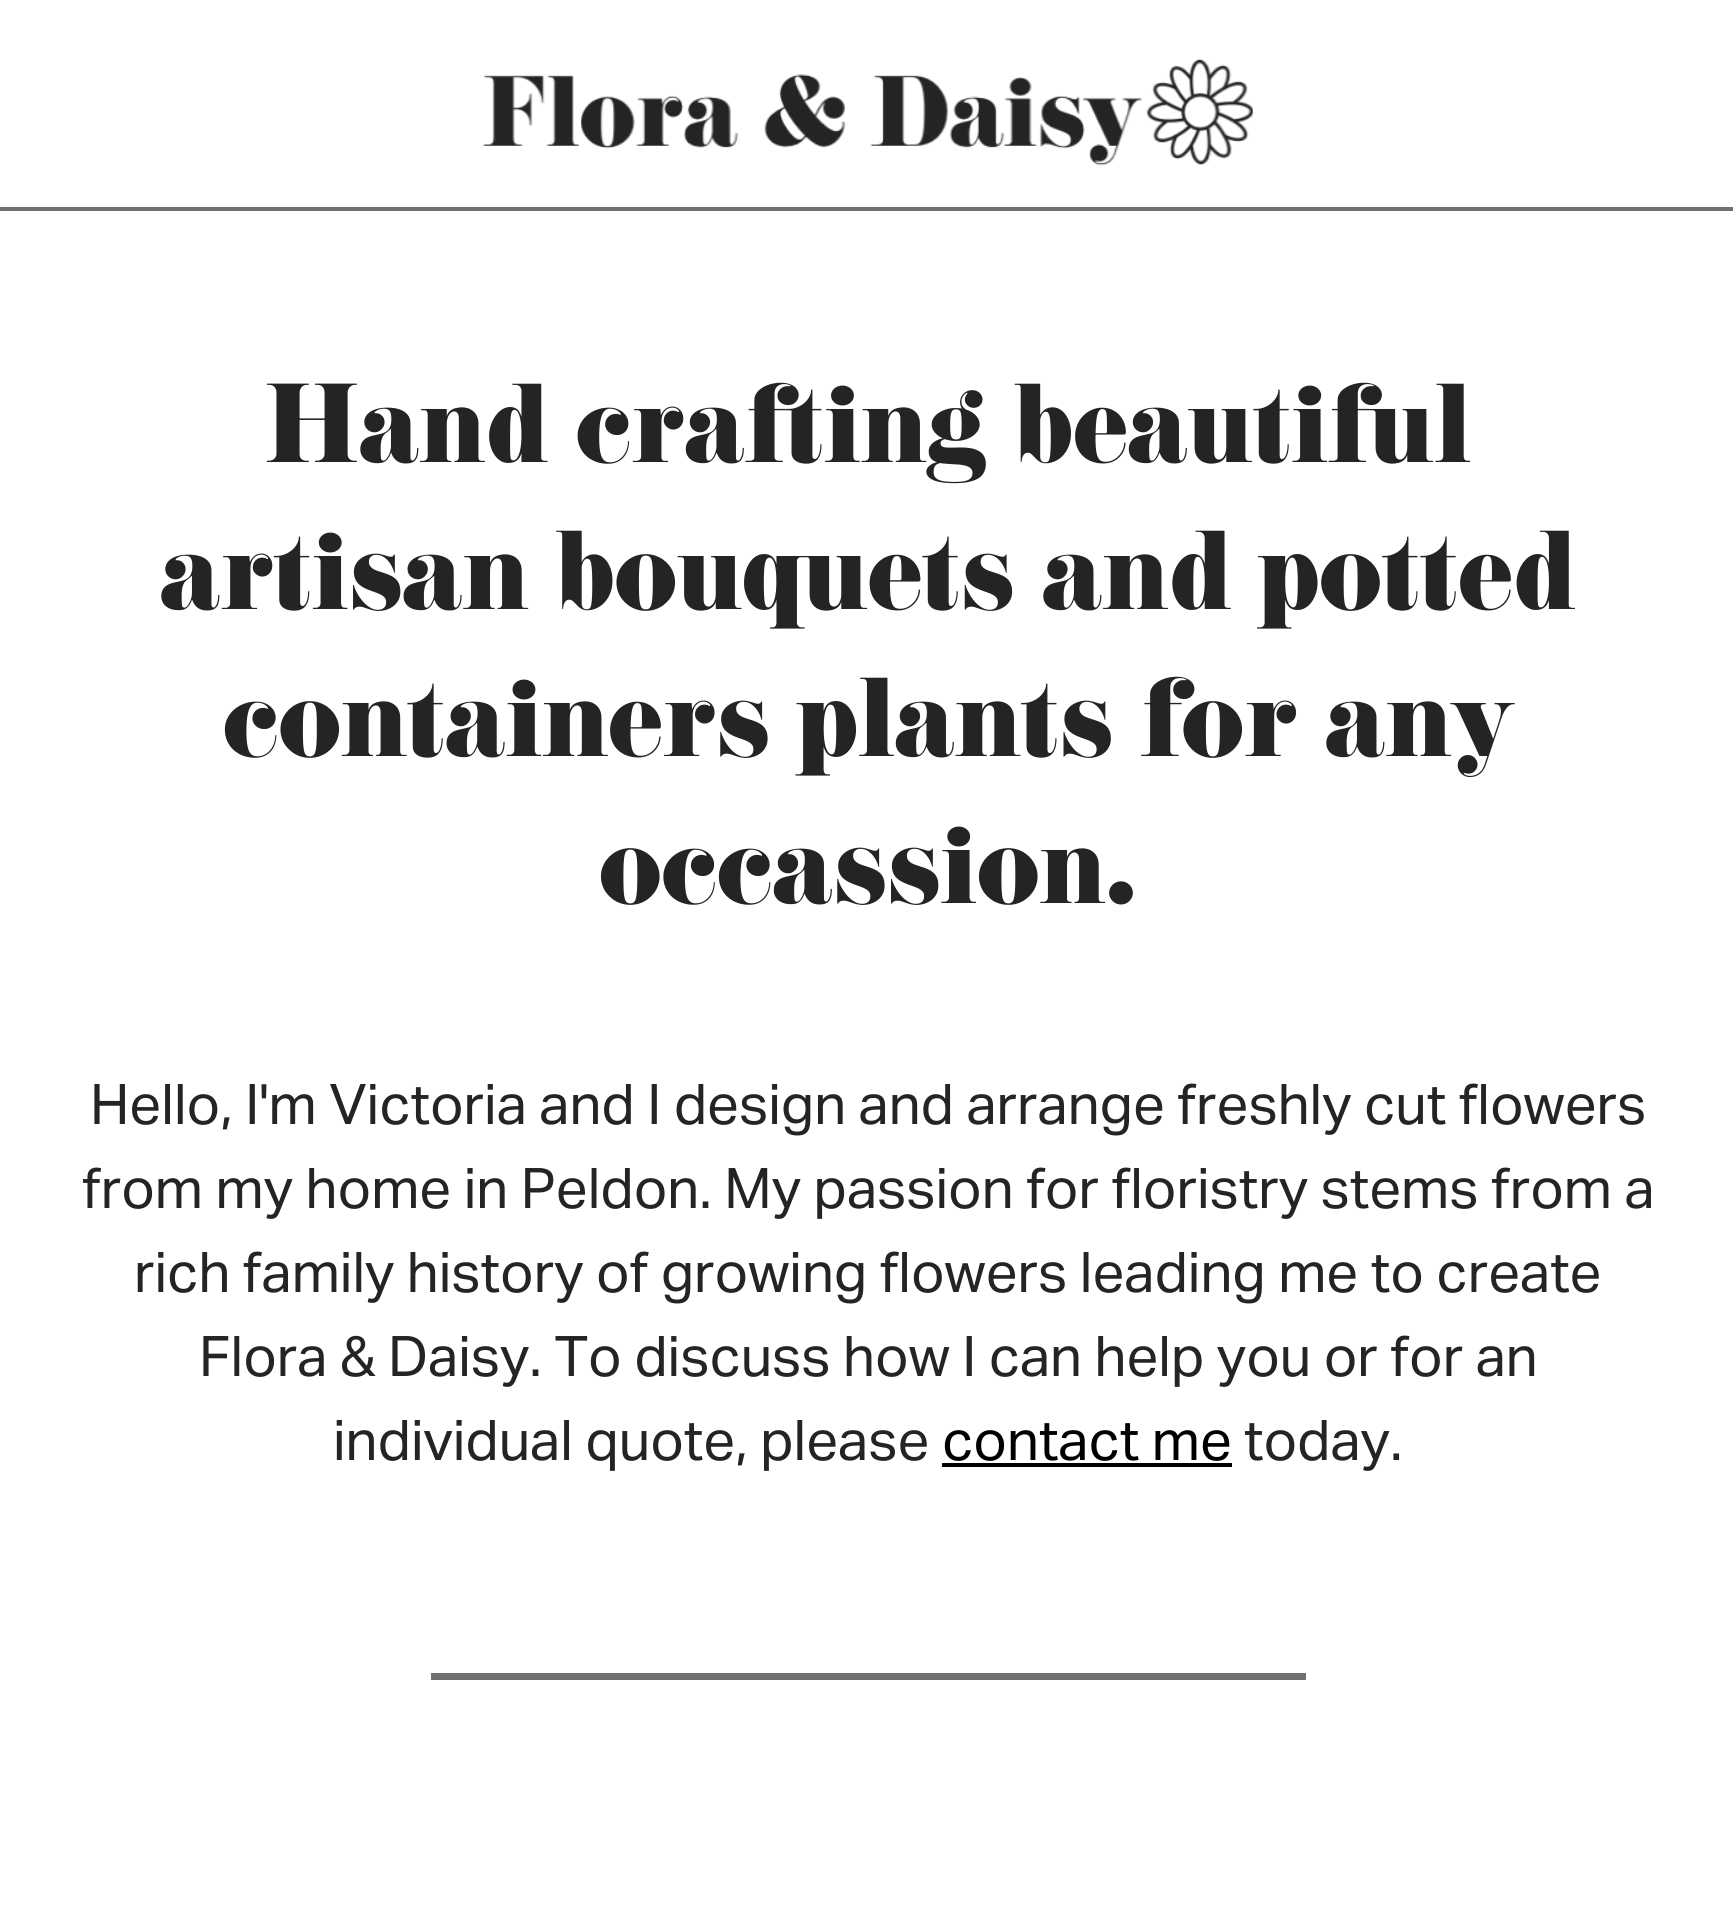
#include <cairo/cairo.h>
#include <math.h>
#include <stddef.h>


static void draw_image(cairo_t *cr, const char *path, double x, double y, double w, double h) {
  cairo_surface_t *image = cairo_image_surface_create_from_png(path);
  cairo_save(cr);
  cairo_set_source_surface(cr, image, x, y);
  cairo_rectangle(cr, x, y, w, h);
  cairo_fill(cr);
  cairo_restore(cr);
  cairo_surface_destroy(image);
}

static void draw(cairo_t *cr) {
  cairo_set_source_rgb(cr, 1, 1, 1);
  cairo_paint(cr);
  cairo_set_source_rgb(cr, 112 / 255.0, 112 / 255.0, 112 / 255.0);
  cairo_rectangle(cr, 0, 207, 1733, 4);
  cairo_fill(cr);
  draw_image(cr, "images/1.png", 483, 59, 770, 107);
  cairo_set_source_rgb(cr, 0, 0, 0);
  cairo_rectangle(cr, 942, 1463, 290, 4);
  cairo_fill(cr);
  cairo_set_source_rgb(cr, 112 / 255.0, 112 / 255.0, 112 / 255.0);
  cairo_rectangle(cr, 431, 1673, 875, 7);
  cairo_fill(cr);
  cairo_select_font_face(cr, "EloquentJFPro", CAIRO_FONT_SLANT_NORMAL, CAIRO_FONT_WEIGHT_NORMAL);
  cairo_set_font_size(cr, 98);
  cairo_set_source_rgb(cr, 36 / 255.0, 36 / 255.0, 36 / 255.0);
  cairo_move_to(cr, 265, 462);
  cairo_show_text(cr, "Hand crafting beautiful");
  cairo_move_to(cr, 160, 609);
  cairo_show_text(cr, "artisan bouquets and potted");
  cairo_move_to(cr, 223, 756);
  cairo_show_text(cr, "containers plants for any");
  cairo_move_to(cr, 599, 903);
  cairo_show_text(cr, "occassion.");
  cairo_select_font_face(cr, "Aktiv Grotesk", CAIRO_FONT_SLANT_NORMAL, CAIRO_FONT_WEIGHT_NORMAL);
  cairo_set_font_size(cr, 56);
  cairo_move_to(cr, 90, 1124);
  cairo_show_text(cr, "Hello, I'm Victoria and I design and arrange freshly cut flowers");
  cairo_move_to(cr, 82, 1208);
  cairo_show_text(cr, "from my home in Peldon. My passion for floristry stems from a");
  cairo_move_to(cr, 134, 1292);
  cairo_show_text(cr, "rich family history of growing flowers leading me to create");
  cairo_move_to(cr, 199, 1376);
  cairo_show_text(cr, "Flora & Daisy. To discuss how I can help you or for an");
  cairo_move_to(cr, 333, 1460);
  cairo_show_text(cr, "individual quote, please");
  cairo_set_source_rgb(cr, 0, 0, 0);
  cairo_move_to(cr, 942, 1460);
  cairo_show_text(cr, "contact me");
  cairo_set_source_rgb(cr, 36 / 255.0, 36 / 255.0, 36 / 255.0);
  cairo_move_to(cr, 1244, 1460);
  cairo_show_text(cr, "today.");
}

int main(void) {
  cairo_surface_t *surface = cairo_image_surface_create(CAIRO_FORMAT_RGB24, 1733, 1926);
  cairo_t *cr = cairo_create(surface);
  cairo_font_options_t *options = cairo_font_options_create();
  cairo_font_options_set_hint_metrics(options, CAIRO_HINT_METRICS_OFF);
  cairo_font_options_set_hint_style(options, CAIRO_HINT_STYLE_NONE);
  cairo_set_font_options(cr, options);
  cairo_set_miter_limit(cr, 4);
  draw(cr);
  cairo_surface_write_to_png(surface, "out.png");
  cairo_font_options_destroy(options);
  cairo_destroy(cr);
  cairo_surface_destroy(surface);
  return 0;
}
